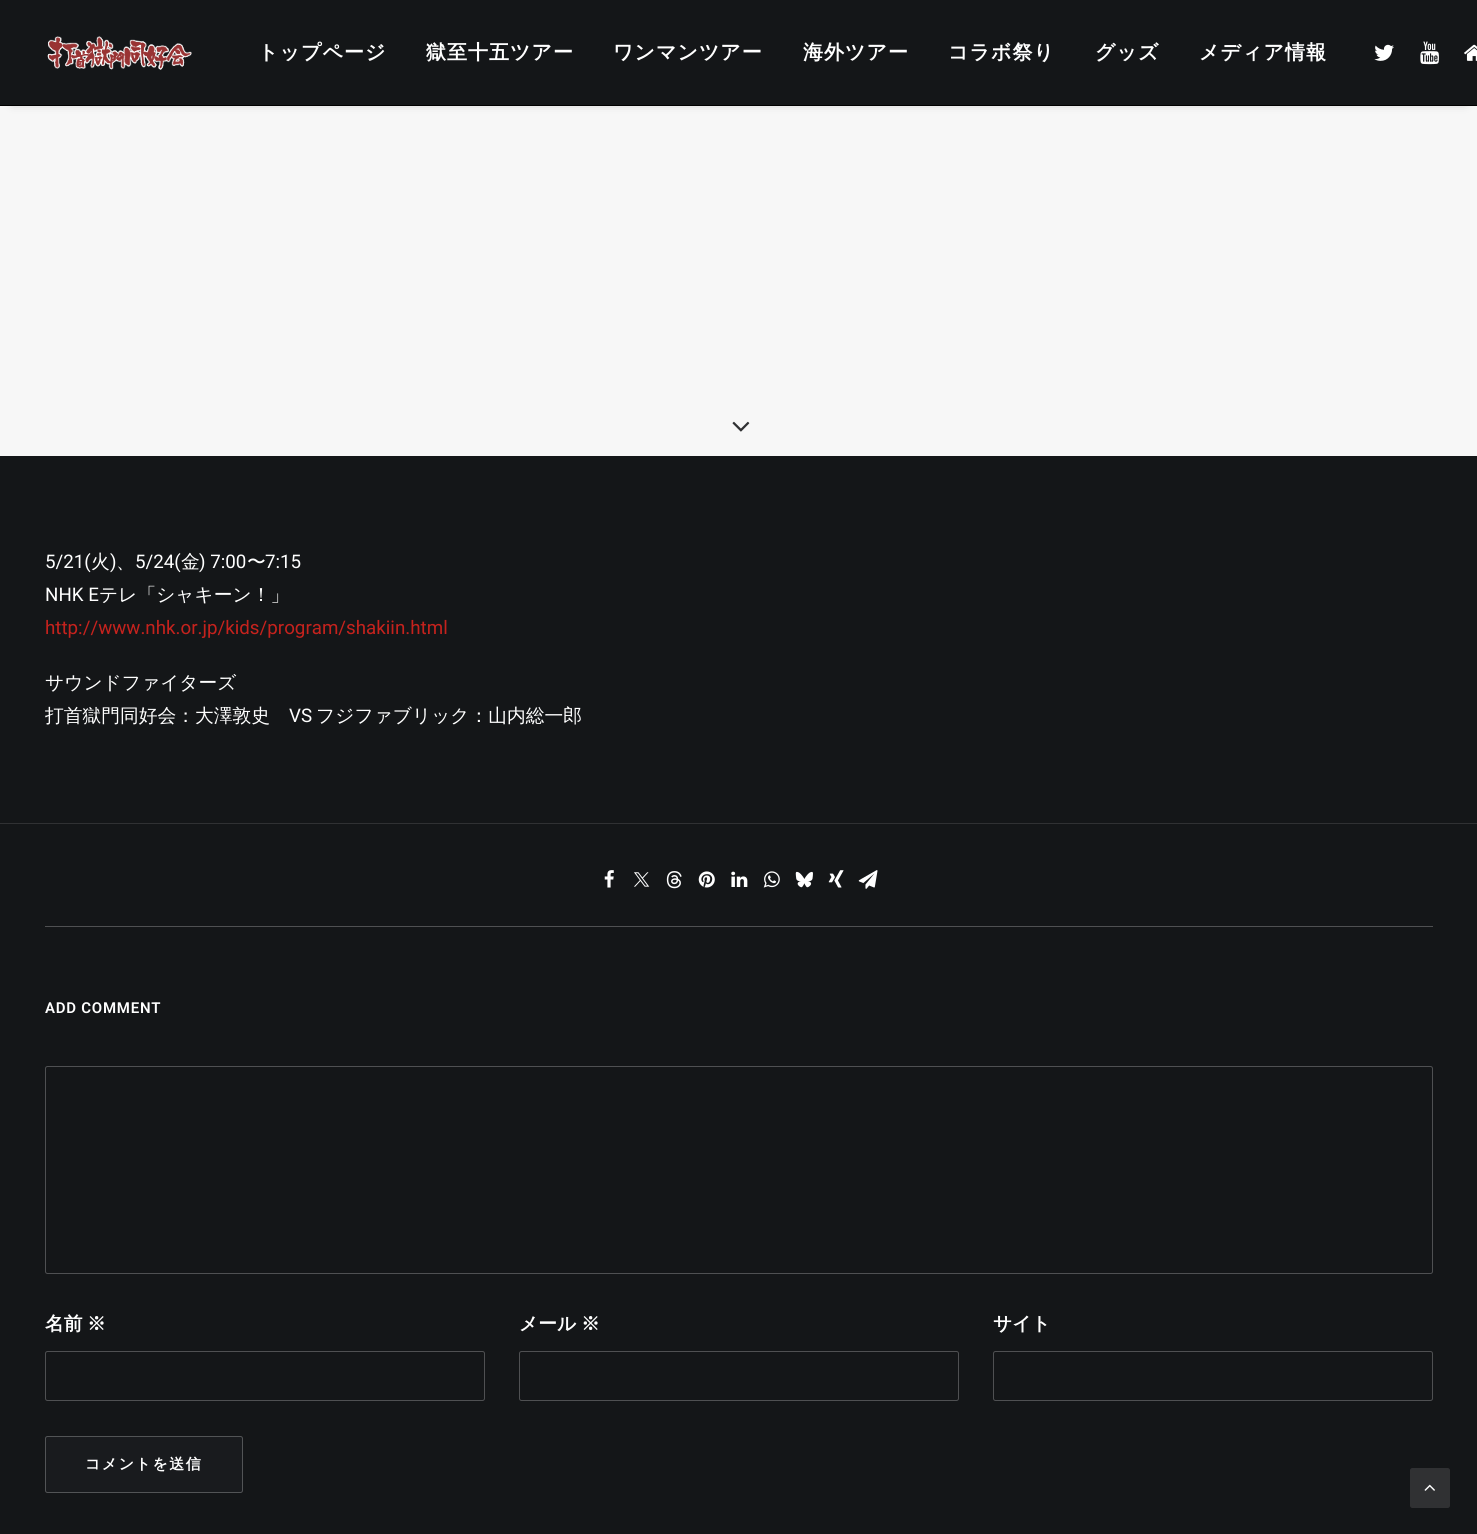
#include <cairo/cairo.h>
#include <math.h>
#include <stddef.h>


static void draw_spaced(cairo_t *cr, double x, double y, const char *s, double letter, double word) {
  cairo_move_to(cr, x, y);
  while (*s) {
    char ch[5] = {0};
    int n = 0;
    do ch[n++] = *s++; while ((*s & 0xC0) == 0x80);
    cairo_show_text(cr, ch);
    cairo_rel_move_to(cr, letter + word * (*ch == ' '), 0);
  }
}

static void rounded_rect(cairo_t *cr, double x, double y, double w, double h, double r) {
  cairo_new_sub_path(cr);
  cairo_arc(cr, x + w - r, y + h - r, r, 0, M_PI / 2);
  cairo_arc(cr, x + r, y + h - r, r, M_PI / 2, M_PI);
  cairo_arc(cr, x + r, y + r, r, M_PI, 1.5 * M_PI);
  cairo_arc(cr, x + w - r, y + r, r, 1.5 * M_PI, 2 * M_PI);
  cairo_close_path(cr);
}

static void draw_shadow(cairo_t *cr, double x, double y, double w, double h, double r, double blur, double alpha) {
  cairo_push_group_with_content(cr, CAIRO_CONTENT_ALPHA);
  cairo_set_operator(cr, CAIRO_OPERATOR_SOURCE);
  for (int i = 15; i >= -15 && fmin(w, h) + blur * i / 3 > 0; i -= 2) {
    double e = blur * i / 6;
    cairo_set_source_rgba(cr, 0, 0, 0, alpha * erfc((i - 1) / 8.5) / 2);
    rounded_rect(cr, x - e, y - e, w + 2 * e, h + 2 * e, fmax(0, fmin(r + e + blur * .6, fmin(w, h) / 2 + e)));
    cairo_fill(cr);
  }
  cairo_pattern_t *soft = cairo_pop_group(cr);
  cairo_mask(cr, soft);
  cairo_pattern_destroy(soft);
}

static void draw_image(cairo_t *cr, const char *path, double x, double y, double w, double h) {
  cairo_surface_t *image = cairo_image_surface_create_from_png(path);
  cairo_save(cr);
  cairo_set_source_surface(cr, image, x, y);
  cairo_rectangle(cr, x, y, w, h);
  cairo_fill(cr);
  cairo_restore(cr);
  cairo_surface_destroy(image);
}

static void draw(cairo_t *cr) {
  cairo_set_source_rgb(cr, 247 / 255.0, 247 / 255.0, 247 / 255.0);
  cairo_paint(cr);
  cairo_set_source_rgb(cr, 0, 0, 0);
  draw_shadow(cr, 13, 18, 1452, 81, 0, 6, 0.6);
  cairo_set_source_rgb(cr, 20 / 255.0, 22 / 255.0, 24 / 255.0);
  cairo_rectangle(cr, 0, 0, 1477, 105);
  cairo_fill(cr);
  cairo_set_source_rgb(cr, 0, 0, 0);
  cairo_rectangle(cr, 0, 105, 1477, 1);
  cairo_fill(cr);
  draw_image(cr, "images/1.png", 47, 36, 145, 34);
  draw_image(cr, "images/2.png", 1374, 44, 20, 17);
  draw_image(cr, "images/3.png", 1420, 41, 19, 24);
  draw_image(cr, "images/4.png", 1464, 44, 13, 17);
  draw_image(cr, "images/5.png", 732, 421, 18, 11);
  cairo_set_source_rgb(cr, 20 / 255.0, 22 / 255.0, 24 / 255.0);
  cairo_rectangle(cr, 0, 456, 1477, 1078);
  cairo_fill(cr);
  cairo_set_source_rgb(cr, 48 / 255.0, 49 / 255.0, 51 / 255.0);
  cairo_rectangle(cr, 0, 823, 1477, 1);
  cairo_fill(cr);
  cairo_set_source_rgb(cr, 79 / 255.0, 80 / 255.0, 82 / 255.0);
  cairo_rectangle(cr, 45, 926, 1388, 1);
  cairo_fill(cr);
  draw_image(cr, "images/6.png", 604, 870, 10, 18);
  draw_image(cr, "images/7.png", 634, 872, 16, 15);
  draw_image(cr, "images/8.png", 666, 871, 16, 18);
  draw_image(cr, "images/9.png", 698, 871, 17, 17);
  draw_image(cr, "images/10.png", 731, 871, 17, 16);
  draw_image(cr, "images/11.png", 763, 871, 17, 17);
  draw_image(cr, "images/12.png", 795, 871, 18, 17);
  draw_image(cr, "images/13.png", 828, 870, 16, 18);
  draw_image(cr, "images/14.png", 858, 870, 20, 19);
  rounded_rect(cr, 45.5, 1066.5, 1387, 207, 2);
  cairo_set_line_width(cr, 1);
  cairo_stroke(cr);
  rounded_rect(cr, 45.5, 1351.5, 439, 49, 2);
  cairo_stroke(cr);
  rounded_rect(cr, 519.5, 1351.5, 439, 49, 2);
  cairo_stroke(cr);
  rounded_rect(cr, 993.5, 1351.5, 439, 49, 2);
  cairo_stroke(cr);
  cairo_set_source_rgb(cr, 25 / 255.0, 27 / 255.0, 30 / 255.0);
  rounded_rect(cr, 45.5, 1436.5, 197, 56, 2);
  cairo_fill_preserve(cr);
  cairo_set_source_rgb(cr, 82 / 255.0, 84 / 255.0, 86 / 255.0);
  cairo_stroke(cr);
  cairo_set_source_rgb(cr, 48 / 255.0, 49 / 255.0, 51 / 255.0);
  rounded_rect(cr, 1410.5, 1468.5, 39, 39, 2);
  cairo_fill_preserve(cr);
  cairo_stroke(cr);
  draw_image(cr, "images/15.png", 1424, 1484, 11, 7);
  cairo_select_font_face(cr, "WenQuanYi Zen Hei", CAIRO_FONT_SLANT_NORMAL, CAIRO_FONT_WEIGHT_BOLD);
  cairo_set_font_size(cr, 20);
  cairo_set_source_rgb(cr, 1, 1, 1);
  draw_spaced(cr, 258, 59, "トップページ", 1, 0);
  draw_spaced(cr, 426, 59, "獄至十五ツアー", 1, 0);
  draw_spaced(cr, 613, 59, "ワンマンツアー", 1, 0);
  draw_spaced(cr, 803, 59, "海外ツアー", 1, 0);
  draw_spaced(cr, 948, 59, "コラボ祭り", 1, 0);
  draw_spaced(cr, 1095, 59, "グッズ", 1, 0);
  draw_spaced(cr, 1199, 59, "メディア情報", 1, 0);
  cairo_select_font_face(cr, "Roboto", CAIRO_FONT_SLANT_NORMAL, CAIRO_FONT_WEIGHT_NORMAL);
  cairo_set_font_size(cr, 18.75);
  cairo_move_to(cr, 45, 568);
  cairo_show_text(cr, "5/21(");
  cairo_select_font_face(cr, "WenQuanYi Zen Hei Medium", CAIRO_FONT_SLANT_NORMAL, CAIRO_FONT_WEIGHT_NORMAL);
  cairo_move_to(cr, 91, 568);
  cairo_show_text(cr, "火");
  cairo_select_font_face(cr, "Roboto", CAIRO_FONT_SLANT_NORMAL, CAIRO_FONT_WEIGHT_NORMAL);
  cairo_move_to(cr, 110, 568);
  cairo_show_text(cr, ")");
  cairo_move_to(cr, 135, 568);
  cairo_show_text(cr, "5/24(");
  cairo_select_font_face(cr, "WenQuanYi Zen Hei Medium", CAIRO_FONT_SLANT_NORMAL, CAIRO_FONT_WEIGHT_NORMAL);
  cairo_move_to(cr, 181, 568);
  cairo_show_text(cr, "金");
  cairo_select_font_face(cr, "Roboto", CAIRO_FONT_SLANT_NORMAL, CAIRO_FONT_WEIGHT_NORMAL);
  cairo_move_to(cr, 199, 568);
  cairo_show_text(cr, ") 7:00");
  cairo_select_font_face(cr, "WenQuanYi Zen Hei Medium", CAIRO_FONT_SLANT_NORMAL, CAIRO_FONT_WEIGHT_NORMAL);
  cairo_move_to(cr, 247, 568);
  cairo_show_text(cr, "〜");
  cairo_select_font_face(cr, "Roboto", CAIRO_FONT_SLANT_NORMAL, CAIRO_FONT_WEIGHT_NORMAL);
  cairo_move_to(cr, 265, 568);
  cairo_show_text(cr, "7:15");
  cairo_select_font_face(cr, "WenQuanYi Zen Hei Medium", CAIRO_FONT_SLANT_NORMAL, CAIRO_FONT_WEIGHT_NORMAL);
  cairo_move_to(cr, 116, 568);
  cairo_show_text(cr, "、");
  cairo_select_font_face(cr, "Roboto", CAIRO_FONT_SLANT_NORMAL, CAIRO_FONT_WEIGHT_NORMAL);
  cairo_move_to(cr, 45, 601);
  cairo_show_text(cr, "NHK E");
  cairo_select_font_face(cr, "WenQuanYi Zen Hei Medium", CAIRO_FONT_SLANT_NORMAL, CAIRO_FONT_WEIGHT_NORMAL);
  cairo_move_to(cr, 99, 601);
  cairo_show_text(cr, "テレ「シャキーン！」");
  cairo_select_font_face(cr, "Roboto", CAIRO_FONT_SLANT_NORMAL, CAIRO_FONT_WEIGHT_NORMAL);
  cairo_set_source_rgb(cr, 198 / 255.0, 34 / 255.0, 29 / 255.0);
  cairo_move_to(cr, 45, 634);
  cairo_show_text(cr, "http://www.nhk.or.jp/kids/program/shakiin.html");
  cairo_select_font_face(cr, "WenQuanYi Zen Hei Medium", CAIRO_FONT_SLANT_NORMAL, CAIRO_FONT_WEIGHT_NORMAL);
  cairo_set_source_rgb(cr, 1, 1, 1);
  cairo_move_to(cr, 45, 689);
  cairo_show_text(cr, "サウンドファイターズ");
  cairo_move_to(cr, 45, 722);
  cairo_show_text(cr, "打首獄門同好会：大澤敦史");
  cairo_select_font_face(cr, "Roboto", CAIRO_FONT_SLANT_NORMAL, CAIRO_FONT_WEIGHT_NORMAL);
  cairo_move_to(cr, 289, 722);
  cairo_show_text(cr, "VS");
  cairo_select_font_face(cr, "WenQuanYi Zen Hei Medium", CAIRO_FONT_SLANT_NORMAL, CAIRO_FONT_WEIGHT_NORMAL);
  cairo_move_to(cr, 316, 722);
  cairo_show_text(cr, "フジファブリック：山内総一郎");
  cairo_select_font_face(cr, "Roboto SemiBold", CAIRO_FONT_SLANT_NORMAL, CAIRO_FONT_WEIGHT_NORMAL);
  cairo_set_font_size(cr, 15);
  draw_spaced(cr, 45, 1013, "ADD COMMENT", 0.75, 0);
  cairo_select_font_face(cr, "WenQuanYi Zen Hei", CAIRO_FONT_SLANT_NORMAL, CAIRO_FONT_WEIGHT_BOLD);
  cairo_set_font_size(cr, 18.75);
  cairo_move_to(cr, 45, 1330);
  cairo_show_text(cr, "名前");
  cairo_move_to(cr, 87, 1330);
  cairo_show_text(cr, "※");
  cairo_move_to(cr, 519, 1330);
  cairo_show_text(cr, "メール");
  cairo_move_to(cr, 581, 1330);
  cairo_show_text(cr, "※");
  cairo_move_to(cr, 993, 1330);
  cairo_show_text(cr, "サイト");
  cairo_set_font_size(cr, 15);
  draw_spaced(cr, 85, 1469, "コメントを送信", 1.5, 0);
}

int main(void) {
  cairo_surface_t *surface = cairo_image_surface_create(CAIRO_FORMAT_RGB24, 1477, 1534);
  cairo_t *cr = cairo_create(surface);
  cairo_font_options_t *options = cairo_font_options_create();
  cairo_font_options_set_hint_metrics(options, CAIRO_HINT_METRICS_OFF);
  cairo_font_options_set_hint_style(options, CAIRO_HINT_STYLE_NONE);
  cairo_set_font_options(cr, options);
  cairo_set_miter_limit(cr, 4);
  draw(cr);
  cairo_surface_write_to_png(surface, "out.png");
  cairo_font_options_destroy(options);
  cairo_destroy(cr);
  cairo_surface_destroy(surface);
  return 0;
}
